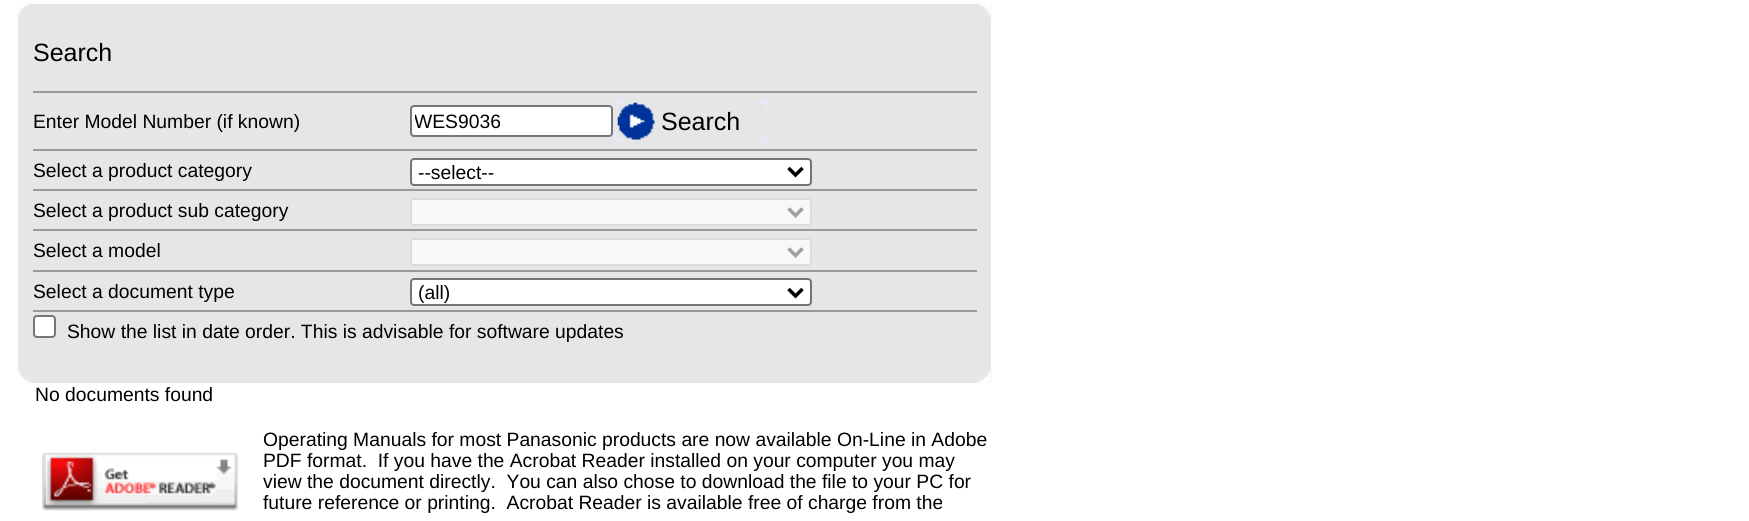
#include <cairo/cairo.h>
#include <math.h>
#include <stddef.h>


static void rounded_rect(cairo_t *cr, double x, double y, double w, double h, double r) {
  cairo_new_sub_path(cr);
  cairo_arc(cr, x + w - r, y + h - r, r, 0, M_PI / 2);
  cairo_arc(cr, x + r, y + h - r, r, M_PI / 2, M_PI);
  cairo_arc(cr, x + r, y + r, r, M_PI, 1.5 * M_PI);
  cairo_arc(cr, x + w - r, y + r, r, 1.5 * M_PI, 2 * M_PI);
  cairo_close_path(cr);
}

static void draw_image(cairo_t *cr, const char *path, double x, double y, double w, double h) {
  cairo_surface_t *image = cairo_image_surface_create_from_png(path);
  cairo_save(cr);
  cairo_set_source_surface(cr, image, x, y);
  cairo_rectangle(cr, x, y, w, h);
  cairo_fill(cr);
  cairo_restore(cr);
  cairo_surface_destroy(image);
}

static void draw(cairo_t *cr) {
  cairo_set_source_rgb(cr, 1, 1, 1);
  cairo_paint(cr);
  cairo_set_source_rgb(cr, 230 / 255.0, 230 / 255.0, 230 / 255.0);
  cairo_rectangle(cr, 18, 4, 973, 379);
  cairo_fill(cr);
  draw_image(cr, "images/1.png", 17, 3, 17, 16);
  draw_image(cr, "images/2.png", 974, 3, 17, 14);
  cairo_set_source_rgb(cr, 153 / 255.0, 153 / 255.0, 153 / 255.0);
  cairo_rectangle(cr, 33, 91, 944, 2);
  cairo_fill(cr);
  cairo_set_source_rgb(cr, 1, 1, 1);
  rounded_rect(cr, 411, 106, 201, 30, 3);
  cairo_fill_preserve(cr);
  cairo_set_source_rgb(cr, 118 / 255.0, 118 / 255.0, 118 / 255.0);
  cairo_stroke(cr);
  draw_image(cr, "images/7.png", 617, 102, 38, 38);
  draw_image(cr, "images/3.png", 616, 99, 11, 11);
  draw_image(cr, "images/4.png", 757, 99, 12, 11);
  draw_image(cr, "images/5.png", 614, 130, 11, 12);
  draw_image(cr, "images/6.png", 757, 132, 12, 11);
  cairo_set_source_rgb(cr, 153 / 255.0, 153 / 255.0, 153 / 255.0);
  cairo_rectangle(cr, 33, 149, 944, 2);
  cairo_fill(cr);
  cairo_set_source_rgb(cr, 1, 1, 1);
  rounded_rect(cr, 411, 159, 400, 26, 3);
  cairo_fill_preserve(cr);
  cairo_set_source_rgb(cr, 118 / 255.0, 118 / 255.0, 118 / 255.0);
  cairo_stroke(cr);
  cairo_new_path(cr);
  cairo_move_to(cr, 788.5, 168);
  cairo_line_to(cr, 795.5, 175);
  cairo_line_to(cr, 802.5, 168);
  cairo_set_source_rgb(cr, 0, 0, 0);
  cairo_set_line_width(cr, 3.5);
  cairo_stroke(cr);
  cairo_set_source_rgb(cr, 153 / 255.0, 153 / 255.0, 153 / 255.0);
  cairo_rectangle(cr, 33, 189, 944, 2);
  cairo_fill(cr);
  cairo_set_source_rgb(cr, 248 / 255.0, 248 / 255.0, 248 / 255.0);
  rounded_rect(cr, 410, 198, 402, 28, 4);
  cairo_fill(cr);
  rounded_rect(cr, 411, 199, 400, 26, 3);
  cairo_set_source_rgba(cr, 152 / 255.0, 152 / 255.0, 152 / 255.0, 0.3);
  cairo_set_line_width(cr, 2);
  cairo_stroke(cr);
  cairo_new_path(cr);
  cairo_move_to(cr, 788.5, 208.5);
  cairo_line_to(cr, 795.5, 215.5);
  cairo_line_to(cr, 802.5, 208.5);
  cairo_set_source_rgb(cr, 159 / 255.0, 159 / 255.0, 159 / 255.0);
  cairo_set_line_width(cr, 3.5);
  cairo_stroke(cr);
  cairo_set_source_rgb(cr, 153 / 255.0, 153 / 255.0, 153 / 255.0);
  cairo_rectangle(cr, 33, 229, 944, 2);
  cairo_fill(cr);
  cairo_set_source_rgb(cr, 248 / 255.0, 248 / 255.0, 248 / 255.0);
  rounded_rect(cr, 410, 238, 402, 28, 4);
  cairo_fill(cr);
  rounded_rect(cr, 411, 239, 400, 26, 3);
  cairo_set_source_rgba(cr, 152 / 255.0, 152 / 255.0, 152 / 255.0, 0.3);
  cairo_set_line_width(cr, 2);
  cairo_stroke(cr);
  cairo_new_path(cr);
  cairo_move_to(cr, 788.5, 248.5);
  cairo_line_to(cr, 795.5, 255.5);
  cairo_line_to(cr, 802.5, 248.5);
  cairo_set_source_rgb(cr, 159 / 255.0, 159 / 255.0, 159 / 255.0);
  cairo_set_line_width(cr, 3.5);
  cairo_stroke(cr);
  cairo_set_source_rgb(cr, 153 / 255.0, 153 / 255.0, 153 / 255.0);
  cairo_rectangle(cr, 33, 270, 944, 2);
  cairo_fill(cr);
  cairo_set_source_rgb(cr, 1, 1, 1);
  rounded_rect(cr, 411, 279, 400, 26, 3);
  cairo_fill_preserve(cr);
  cairo_set_source_rgb(cr, 118 / 255.0, 118 / 255.0, 118 / 255.0);
  cairo_set_line_width(cr, 2);
  cairo_stroke(cr);
  cairo_new_path(cr);
  cairo_move_to(cr, 788.5, 289);
  cairo_line_to(cr, 795.5, 296);
  cairo_line_to(cr, 802.5, 289);
  cairo_set_source_rgb(cr, 0, 0, 0);
  cairo_set_line_width(cr, 3.5);
  cairo_stroke(cr);
  cairo_set_source_rgb(cr, 153 / 255.0, 153 / 255.0, 153 / 255.0);
  cairo_rectangle(cr, 33, 310, 944, 2);
  cairo_fill(cr);
  cairo_set_source_rgb(cr, 1, 1, 1);
  rounded_rect(cr, 34, 316, 21, 21, 3);
  cairo_fill_preserve(cr);
  cairo_set_source_rgb(cr, 118 / 255.0, 118 / 255.0, 118 / 255.0);
  cairo_set_line_width(cr, 2);
  cairo_stroke(cr);
  draw_image(cr, "images/8.png", 17, 367, 15, 16);
  draw_image(cr, "images/9.png", 976, 369, 15, 14);
  draw_image(cr, "images/10.png", 42, 452, 196, 59);
  cairo_select_font_face(cr, "Liberation Sans", CAIRO_FONT_SLANT_NORMAL, CAIRO_FONT_WEIGHT_NORMAL);
  cairo_set_font_size(cr, 25);
  cairo_set_source_rgb(cr, 0, 0, 0);
  cairo_move_to(cr, 33, 61);
  cairo_show_text(cr, "Search");
  cairo_set_font_size(cr, 19.3);
  cairo_move_to(cr, 33, 128);
  cairo_show_text(cr, "Enter Model Number (if known)");
  cairo_save(cr);
  cairo_rectangle(cr, 415, 110, 192, 21);
  cairo_clip(cr);
  cairo_move_to(cr, 414, 128);
  cairo_show_text(cr, "WES9036");
  cairo_restore(cr);
  cairo_set_font_size(cr, 25);
  cairo_move_to(cr, 661, 130);
  cairo_show_text(cr, "Search");
  cairo_set_font_size(cr, 19.3);
  cairo_move_to(cr, 33, 177);
  cairo_show_text(cr, "Select a product category");
  cairo_move_to(cr, 418, 179);
  cairo_show_text(cr, "--select--");
  cairo_move_to(cr, 33, 217);
  cairo_show_text(cr, "Select a product sub category");
  cairo_move_to(cr, 33, 257);
  cairo_show_text(cr, "Select a model");
  cairo_move_to(cr, 33, 298);
  cairo_show_text(cr, "Select a document type");
  cairo_move_to(cr, 418, 299);
  cairo_show_text(cr, "(all)");
  cairo_move_to(cr, 67, 338);
  cairo_show_text(cr, "Show the list in date order. This is advisable for software updates");
  cairo_move_to(cr, 35, 401);
  cairo_show_text(cr, "No documents found");
  cairo_move_to(cr, 263, 446);
  cairo_show_text(cr, "Operating Manuals for most Panasonic products are now available On-Line in Adobe");
  cairo_move_to(cr, 263, 467);
  cairo_show_text(cr, "PDF format.  If you have the Acrobat Reader installed on your computer you may");
  cairo_move_to(cr, 263, 488);
  cairo_show_text(cr, "view the document directly.  You can also chose to download the file to your PC for");
  cairo_move_to(cr, 263, 509);
  cairo_show_text(cr, "future reference or printing.  Acrobat Reader is available free of charge from the");
}

int main(void) {
  cairo_surface_t *surface = cairo_image_surface_create(CAIRO_FORMAT_RGB24, 1749, 521);
  cairo_t *cr = cairo_create(surface);
  cairo_font_options_t *options = cairo_font_options_create();
  cairo_font_options_set_hint_metrics(options, CAIRO_HINT_METRICS_OFF);
  cairo_font_options_set_hint_style(options, CAIRO_HINT_STYLE_NONE);
  cairo_set_font_options(cr, options);
  cairo_set_miter_limit(cr, 4);
  draw(cr);
  cairo_surface_write_to_png(surface, "out.png");
  cairo_font_options_destroy(options);
  cairo_destroy(cr);
  cairo_surface_destroy(surface);
  return 0;
}
